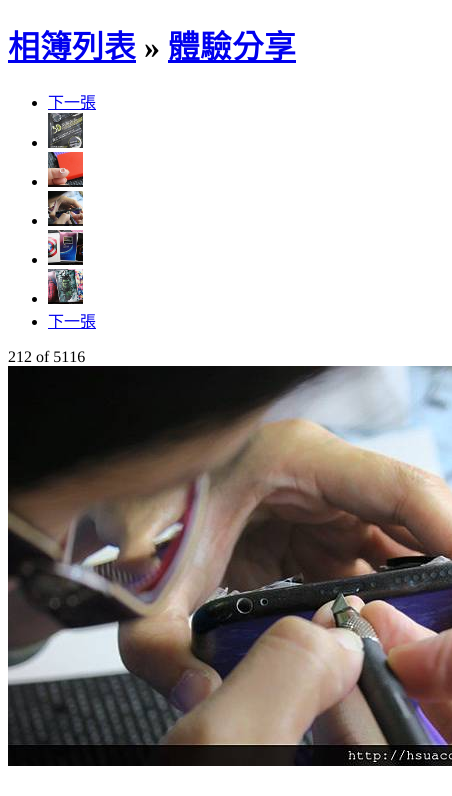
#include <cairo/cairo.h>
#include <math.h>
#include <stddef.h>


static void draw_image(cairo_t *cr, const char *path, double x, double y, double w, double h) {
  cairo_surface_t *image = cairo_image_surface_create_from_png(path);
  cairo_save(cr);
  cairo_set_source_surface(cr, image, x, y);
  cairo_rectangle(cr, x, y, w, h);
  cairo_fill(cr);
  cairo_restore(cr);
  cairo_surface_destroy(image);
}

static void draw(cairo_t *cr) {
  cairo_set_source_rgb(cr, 1, 1, 1);
  cairo_paint(cr);
  cairo_set_source_rgb(cr, 0, 0, 238 / 255.0);
  cairo_rectangle(cr, 8, 60, 128, 3);
  cairo_fill(cr);
  cairo_rectangle(cr, 168, 60, 128, 3);
  cairo_fill(cr);
  cairo_set_source_rgb(cr, 0, 0, 0);
  cairo_arc(cr, 34.5, 103.5, 2.5, 0, 2 * M_PI);
  cairo_fill(cr);
  cairo_set_source_rgb(cr, 0, 0, 238 / 255.0);
  cairo_rectangle(cr, 48, 109, 48, 1);
  cairo_fill(cr);
  cairo_set_source_rgb(cr, 0, 0, 0);
  cairo_arc(cr, 34.5, 143.5, 2.5, 0, 2 * M_PI);
  cairo_fill(cr);
  draw_image(cr, "images/1.png", 48, 113, 35, 35);
  cairo_arc(cr, 34.5, 182.5, 2.5, 0, 2 * M_PI);
  cairo_fill(cr);
  draw_image(cr, "images/2.png", 48, 152, 35, 35);
  cairo_arc(cr, 34.5, 221.5, 2.5, 0, 2 * M_PI);
  cairo_fill(cr);
  draw_image(cr, "images/3.png", 48, 191, 35, 35);
  cairo_arc(cr, 34.5, 260.5, 2.5, 0, 2 * M_PI);
  cairo_fill(cr);
  draw_image(cr, "images/4.png", 48, 230, 35, 35);
  cairo_arc(cr, 34.5, 299.5, 2.5, 0, 2 * M_PI);
  cairo_fill(cr);
  draw_image(cr, "images/5.png", 48, 269, 35, 35);
  cairo_arc(cr, 34.5, 322.5, 2.5, 0, 2 * M_PI);
  cairo_fill(cr);
  cairo_set_source_rgb(cr, 0, 0, 238 / 255.0);
  cairo_rectangle(cr, 48, 328, 48, 1);
  cairo_fill(cr);
  draw_image(cr, "images/6.png", 8, 366, 444, 400);
  cairo_select_font_face(cr, "Noto Sans CJK TC", CAIRO_FONT_SLANT_NORMAL, CAIRO_FONT_WEIGHT_BOLD);
  cairo_set_font_size(cr, 32);
  cairo_move_to(cr, 8, 58);
  cairo_show_text(cr, "相簿列表");
  cairo_select_font_face(cr, "Liberation Serif", CAIRO_FONT_SLANT_NORMAL, CAIRO_FONT_WEIGHT_BOLD);
  cairo_set_source_rgb(cr, 0, 0, 0);
  cairo_move_to(cr, 144, 58);
  cairo_show_text(cr, "»");
  cairo_select_font_face(cr, "Noto Sans CJK TC", CAIRO_FONT_SLANT_NORMAL, CAIRO_FONT_WEIGHT_BOLD);
  cairo_set_source_rgb(cr, 0, 0, 238 / 255.0);
  cairo_move_to(cr, 168, 58);
  cairo_show_text(cr, "體驗分享");
  cairo_select_font_face(cr, "Noto Sans CJK TC", CAIRO_FONT_SLANT_NORMAL, CAIRO_FONT_WEIGHT_NORMAL);
  cairo_set_font_size(cr, 16);
  cairo_move_to(cr, 48, 108);
  cairo_show_text(cr, "下一張");
  cairo_move_to(cr, 48, 327);
  cairo_show_text(cr, "下一張");
  cairo_select_font_face(cr, "Liberation Serif", CAIRO_FONT_SLANT_NORMAL, CAIRO_FONT_WEIGHT_NORMAL);
  cairo_set_source_rgb(cr, 0, 0, 0);
  cairo_move_to(cr, 8, 362);
  cairo_show_text(cr, "212 of 5116");
}

int main(void) {
  cairo_surface_t *surface = cairo_image_surface_create(CAIRO_FORMAT_RGB24, 452, 796);
  cairo_t *cr = cairo_create(surface);
  cairo_font_options_t *options = cairo_font_options_create();
  cairo_font_options_set_hint_metrics(options, CAIRO_HINT_METRICS_OFF);
  cairo_font_options_set_hint_style(options, CAIRO_HINT_STYLE_NONE);
  cairo_set_font_options(cr, options);
  cairo_set_miter_limit(cr, 4);
  draw(cr);
  cairo_surface_write_to_png(surface, "out.png");
  cairo_font_options_destroy(options);
  cairo_destroy(cr);
  cairo_surface_destroy(surface);
  return 0;
}
